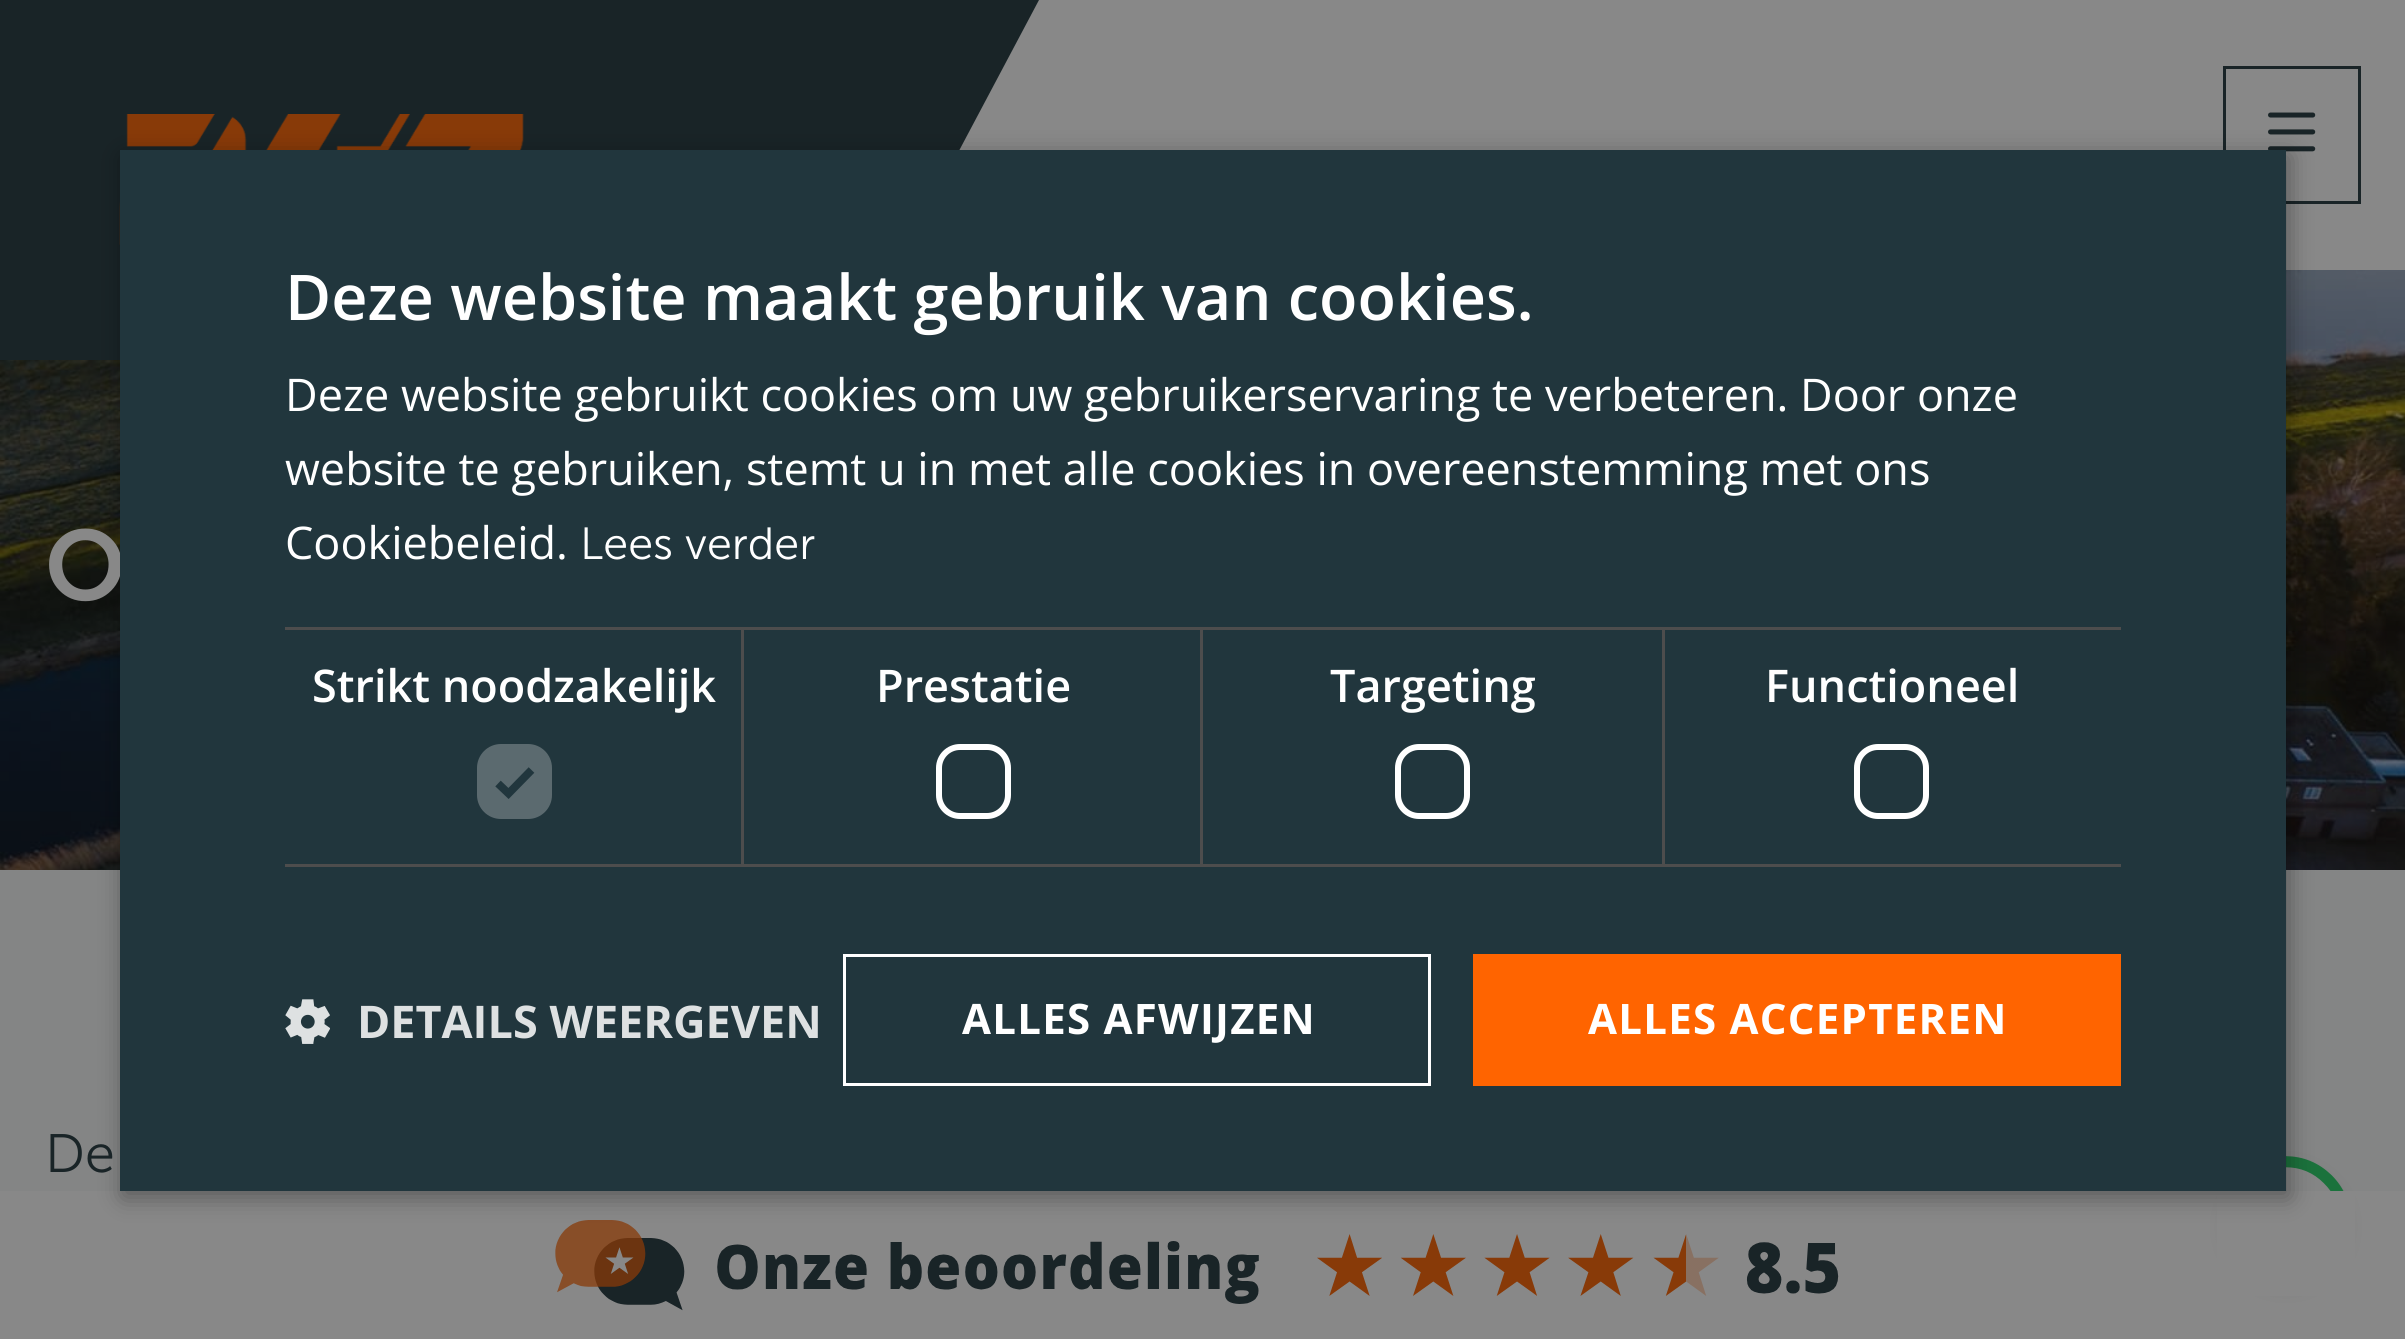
#include <cairo/cairo.h>
#include <math.h>
#include <stddef.h>


static void draw_spaced(cairo_t *cr, double x, double y, const char *s, double letter, double word) {
  cairo_move_to(cr, x, y);
  while (*s) {
    char ch[5] = {0};
    int n = 0;
    do ch[n++] = *s++; while ((*s & 0xC0) == 0x80);
    cairo_show_text(cr, ch);
    cairo_rel_move_to(cr, letter + word * (*ch == ' '), 0);
  }
}

static void rounded_rect(cairo_t *cr, double x, double y, double w, double h, double r) {
  cairo_new_sub_path(cr);
  cairo_arc(cr, x + w - r, y + h - r, r, 0, M_PI / 2);
  cairo_arc(cr, x + r, y + h - r, r, M_PI / 2, M_PI);
  cairo_arc(cr, x + r, y + r, r, M_PI, 1.5 * M_PI);
  cairo_arc(cr, x + w - r, y + r, r, 1.5 * M_PI, 2 * M_PI);
  cairo_close_path(cr);
}

static void draw_shadow(cairo_t *cr, double x, double y, double w, double h, double r, double blur, double alpha) {
  cairo_push_group_with_content(cr, CAIRO_CONTENT_ALPHA);
  cairo_set_operator(cr, CAIRO_OPERATOR_SOURCE);
  for (int i = 15; i >= -15 && fmin(w, h) + blur * i / 3 > 0; i -= 2) {
    double e = blur * i / 6;
    cairo_set_source_rgba(cr, 0, 0, 0, alpha * erfc((i - 1) / 8.5) / 2);
    rounded_rect(cr, x - e, y - e, w + 2 * e, h + 2 * e, fmax(0, fmin(r + e + blur * .6, fmin(w, h) / 2 + e)));
    cairo_fill(cr);
  }
  cairo_pattern_t *soft = cairo_pop_group(cr);
  cairo_mask(cr, soft);
  cairo_pattern_destroy(soft);
}

static void draw_image(cairo_t *cr, const char *path, double x, double y, double w, double h) {
  cairo_surface_t *image = cairo_image_surface_create_from_png(path);
  cairo_save(cr);
  cairo_set_source_surface(cr, image, x, y);
  cairo_rectangle(cr, x, y, w, h);
  cairo_fill(cr);
  cairo_restore(cr);
  cairo_surface_destroy(image);
}

static void draw(cairo_t *cr) {
  cairo_set_source_rgb(cr, 136 / 255.0, 136 / 255.0, 136 / 255.0);
  cairo_paint(cr);
  draw_image(cr, "images/3.png", 0, 270, 2405, 600);
  cairo_set_source_rgb(cr, 25 / 255.0, 36 / 255.0, 39 / 255.0);
  cairo_rectangle(cr, 0, 0, 195, 360);
  cairo_fill(cr);
  cairo_new_path(cr);
  cairo_move_to(cr, 195, 0);
  cairo_line_to(cr, 1039, 0);
  cairo_line_to(cr, 848, 360);
  cairo_line_to(cr, 4, 360);
  cairo_close_path(cr);
  cairo_fill(cr);
  draw_image(cr, "images/1.png", 119, 114, 405, 131);
  cairo_rectangle(cr, 2224.5, 67.5, 135, 135);
  cairo_set_line_width(cr, 3);
  cairo_stroke(cr);
  draw_image(cr, "images/2.png", 2268, 112, 48, 40);
  cairo_set_source_rgb(cr, 132 / 255.0, 133 / 255.0, 133 / 255.0);
  cairo_rectangle(cr, 0, 870, 2405, 321);
  cairo_fill(cr);
  cairo_save(cr);
  cairo_set_fill_rule(cr, CAIRO_FILL_RULE_EVEN_ODD);
  cairo_new_path(cr);
  cairo_move_to(cr, 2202, 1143);
  cairo_line_to(cr, 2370, 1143);
  cairo_line_to(cr, 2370, 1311);
  cairo_line_to(cr, 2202, 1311);
  cairo_close_path(cr);
  cairo_move_to(cr, 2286, 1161);
  cairo_curve_to(cr, 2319, 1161, 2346, 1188, 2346, 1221);
  cairo_curve_to(cr, 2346, 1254, 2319, 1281, 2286, 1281);
  cairo_curve_to(cr, 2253, 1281, 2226, 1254, 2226, 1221);
  cairo_curve_to(cr, 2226, 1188, 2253, 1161, 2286, 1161);
  cairo_close_path(cr);
  cairo_clip(cr);
  cairo_set_source_rgb(cr, 9 / 255.0, 9 / 255.0, 9 / 255.0);
  draw_shadow(cr, 2226, 1167, 120, 120, 60, 7.5, 0.2);
  cairo_restore(cr);
  draw_image(cr, "images/5.png", 2286, 1156, 58, 35);
  cairo_set_source_rgb(cr, 136 / 255.0, 136 / 255.0, 136 / 255.0);
  cairo_rectangle(cr, 2217, 1191, 138, 105);
  cairo_fill(cr);
  draw_image(cr, "images/6.png", 555, 1220, 1284, 91);
  cairo_set_source_rgb(cr, 0, 0, 0);
  draw_shadow(cr, 123, 156, 2166, 1041, 0, 12, 0.35);
  cairo_select_font_face(cr, "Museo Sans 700 SemiBold", CAIRO_FONT_SLANT_NORMAL, CAIRO_FONT_WEIGHT_NORMAL);
  cairo_set_font_size(cr, 99);
  cairo_set_source_rgb(cr, 136 / 255.0, 136 / 255.0, 136 / 255.0);
  cairo_move_to(cr, 45, 600);
  cairo_show_text(cr, "O");
  cairo_select_font_face(cr, "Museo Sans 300 Light", CAIRO_FONT_SLANT_NORMAL, CAIRO_FONT_WEIGHT_NORMAL);
  cairo_set_font_size(cr, 54);
  cairo_set_source_rgb(cr, 25 / 255.0, 36 / 255.0, 39 / 255.0);
  cairo_move_to(cr, 45, 1172);
  cairo_show_text(cr, "De");
  cairo_set_source_rgb(cr, 33 / 255.0, 54 / 255.0, 61 / 255.0);
  cairo_rectangle(cr, 120, 150, 2166, 1041);
  cairo_fill(cr);
  cairo_select_font_face(cr, "Open Sans SemiBold", CAIRO_FONT_SLANT_NORMAL, CAIRO_FONT_WEIGHT_NORMAL);
  cairo_set_font_size(cr, 63);
  cairo_set_source_rgb(cr, 1, 1, 1);
  cairo_move_to(cr, 285, 320);
  cairo_show_text(cr, "Deze website maakt gebruik van cookies.");
  cairo_select_font_face(cr, "Open Sans", CAIRO_FONT_SLANT_NORMAL, CAIRO_FONT_WEIGHT_NORMAL);
  cairo_set_font_size(cr, 45);
  cairo_move_to(cr, 285, 411);
  cairo_show_text(cr, "Deze website gebruikt cookies om uw gebruikerservaring te verbeteren. Door onze");
  cairo_move_to(cr, 285, 485);
  cairo_show_text(cr, "website te gebruiken, stemt u in met alle cookies in overeenstemming met ons");
  cairo_move_to(cr, 285, 559);
  cairo_show_text(cr, "Cookiebeleid.");
  cairo_select_font_face(cr, "Museo Sans 300 Light", CAIRO_FONT_SLANT_NORMAL, CAIRO_FONT_WEIGHT_NORMAL);
  cairo_move_to(cr, 580, 559);
  cairo_show_text(cr, "Lees verder");
  cairo_set_source_rgb(cr, 77 / 255.0, 77 / 255.0, 77 / 255.0);
  cairo_rectangle(cr, 285, 627, 1836, 3);
  cairo_fill(cr);
  cairo_rectangle(cr, 741, 627, 3, 240);
  cairo_fill(cr);
  cairo_rectangle(cr, 285, 864, 459, 3);
  cairo_fill(cr);
  cairo_select_font_face(cr, "Open Sans SemiBold", CAIRO_FONT_SLANT_NORMAL, CAIRO_FONT_WEIGHT_NORMAL);
  cairo_set_source_rgb(cr, 1, 1, 1);
  cairo_move_to(cr, 312, 702);
  cairo_show_text(cr, "Strikt noodzakelijk");
  cairo_set_source_rgb(cr, 91 / 255.0, 106 / 255.0, 111 / 255.0);
  rounded_rect(cr, 477, 744, 75, 75, 24);
  cairo_fill(cr);
  cairo_new_path(cr);
  cairo_move_to(cr, 498, 783.5);
  cairo_line_to(cr, 508.5, 793.5);
  cairo_line_to(cr, 531.5, 770);
  cairo_set_source_rgb(cr, 33 / 255.0, 54 / 255.0, 61 / 255.0);
  cairo_set_line_width(cr, 7.9);
  cairo_stroke(cr);
  cairo_set_source_rgb(cr, 77 / 255.0, 77 / 255.0, 77 / 255.0);
  cairo_rectangle(cr, 1200, 627, 3, 240);
  cairo_fill(cr);
  cairo_rectangle(cr, 744, 864, 459, 3);
  cairo_fill(cr);
  cairo_set_source_rgb(cr, 1, 1, 1);
  cairo_move_to(cr, 876, 702);
  cairo_show_text(cr, "Prestatie");
  rounded_rect(cr, 939, 747, 69, 69, 21);
  cairo_set_line_width(cr, 6);
  cairo_stroke(cr);
  cairo_set_source_rgb(cr, 77 / 255.0, 77 / 255.0, 77 / 255.0);
  cairo_rectangle(cr, 1662, 627, 3, 240);
  cairo_fill(cr);
  cairo_rectangle(cr, 1203, 864, 918, 3);
  cairo_fill(cr);
  cairo_set_source_rgb(cr, 1, 1, 1);
  cairo_move_to(cr, 1330, 702);
  cairo_show_text(cr, "Targeting");
  rounded_rect(cr, 1398, 747, 69, 69, 21);
  cairo_stroke(cr);
  cairo_move_to(cr, 1765, 702);
  cairo_show_text(cr, "Functioneel");
  rounded_rect(cr, 1857, 747, 69, 69, 21);
  cairo_stroke(cr);
  draw_image(cr, "images/4.png", 285, 999, 45, 45);
  cairo_select_font_face(cr, "Open Sans", CAIRO_FONT_SLANT_NORMAL, CAIRO_FONT_WEIGHT_BOLD);
  cairo_set_source_rgb(cr, 222 / 255.0, 225 / 255.0, 226 / 255.0);
  cairo_move_to(cr, 357, 1038);
  cairo_show_text(cr, "DETAILS WEERGEVEN");
  cairo_rectangle(cr, 844.5, 955.5, 585, 129);
  cairo_set_source_rgb(cr, 1, 1, 1);
  cairo_set_line_width(cr, 3);
  cairo_stroke(cr);
  cairo_set_font_size(cr, 42);
  draw_spaced(cr, 962, 1034, "ALLES AFWIJZEN", 1.25, 0);
  cairo_set_source_rgb(cr, 1, 100 / 255.0, 0);
  cairo_rectangle(cr, 1473, 954, 648, 132);
  cairo_fill(cr);
  cairo_set_source_rgb(cr, 1, 1, 1);
  draw_spaced(cr, 1588, 1034, "ALLES ACCEPTEREN", 1.25, 0);
}

int main(void) {
  cairo_surface_t *surface = cairo_image_surface_create(CAIRO_FORMAT_RGB24, 2405, 1339);
  cairo_t *cr = cairo_create(surface);
  cairo_font_options_t *options = cairo_font_options_create();
  cairo_font_options_set_hint_metrics(options, CAIRO_HINT_METRICS_OFF);
  cairo_font_options_set_hint_style(options, CAIRO_HINT_STYLE_NONE);
  cairo_set_font_options(cr, options);
  cairo_set_miter_limit(cr, 4);
  draw(cr);
  cairo_surface_write_to_png(surface, "out.png");
  cairo_font_options_destroy(options);
  cairo_destroy(cr);
  cairo_surface_destroy(surface);
  return 0;
}
